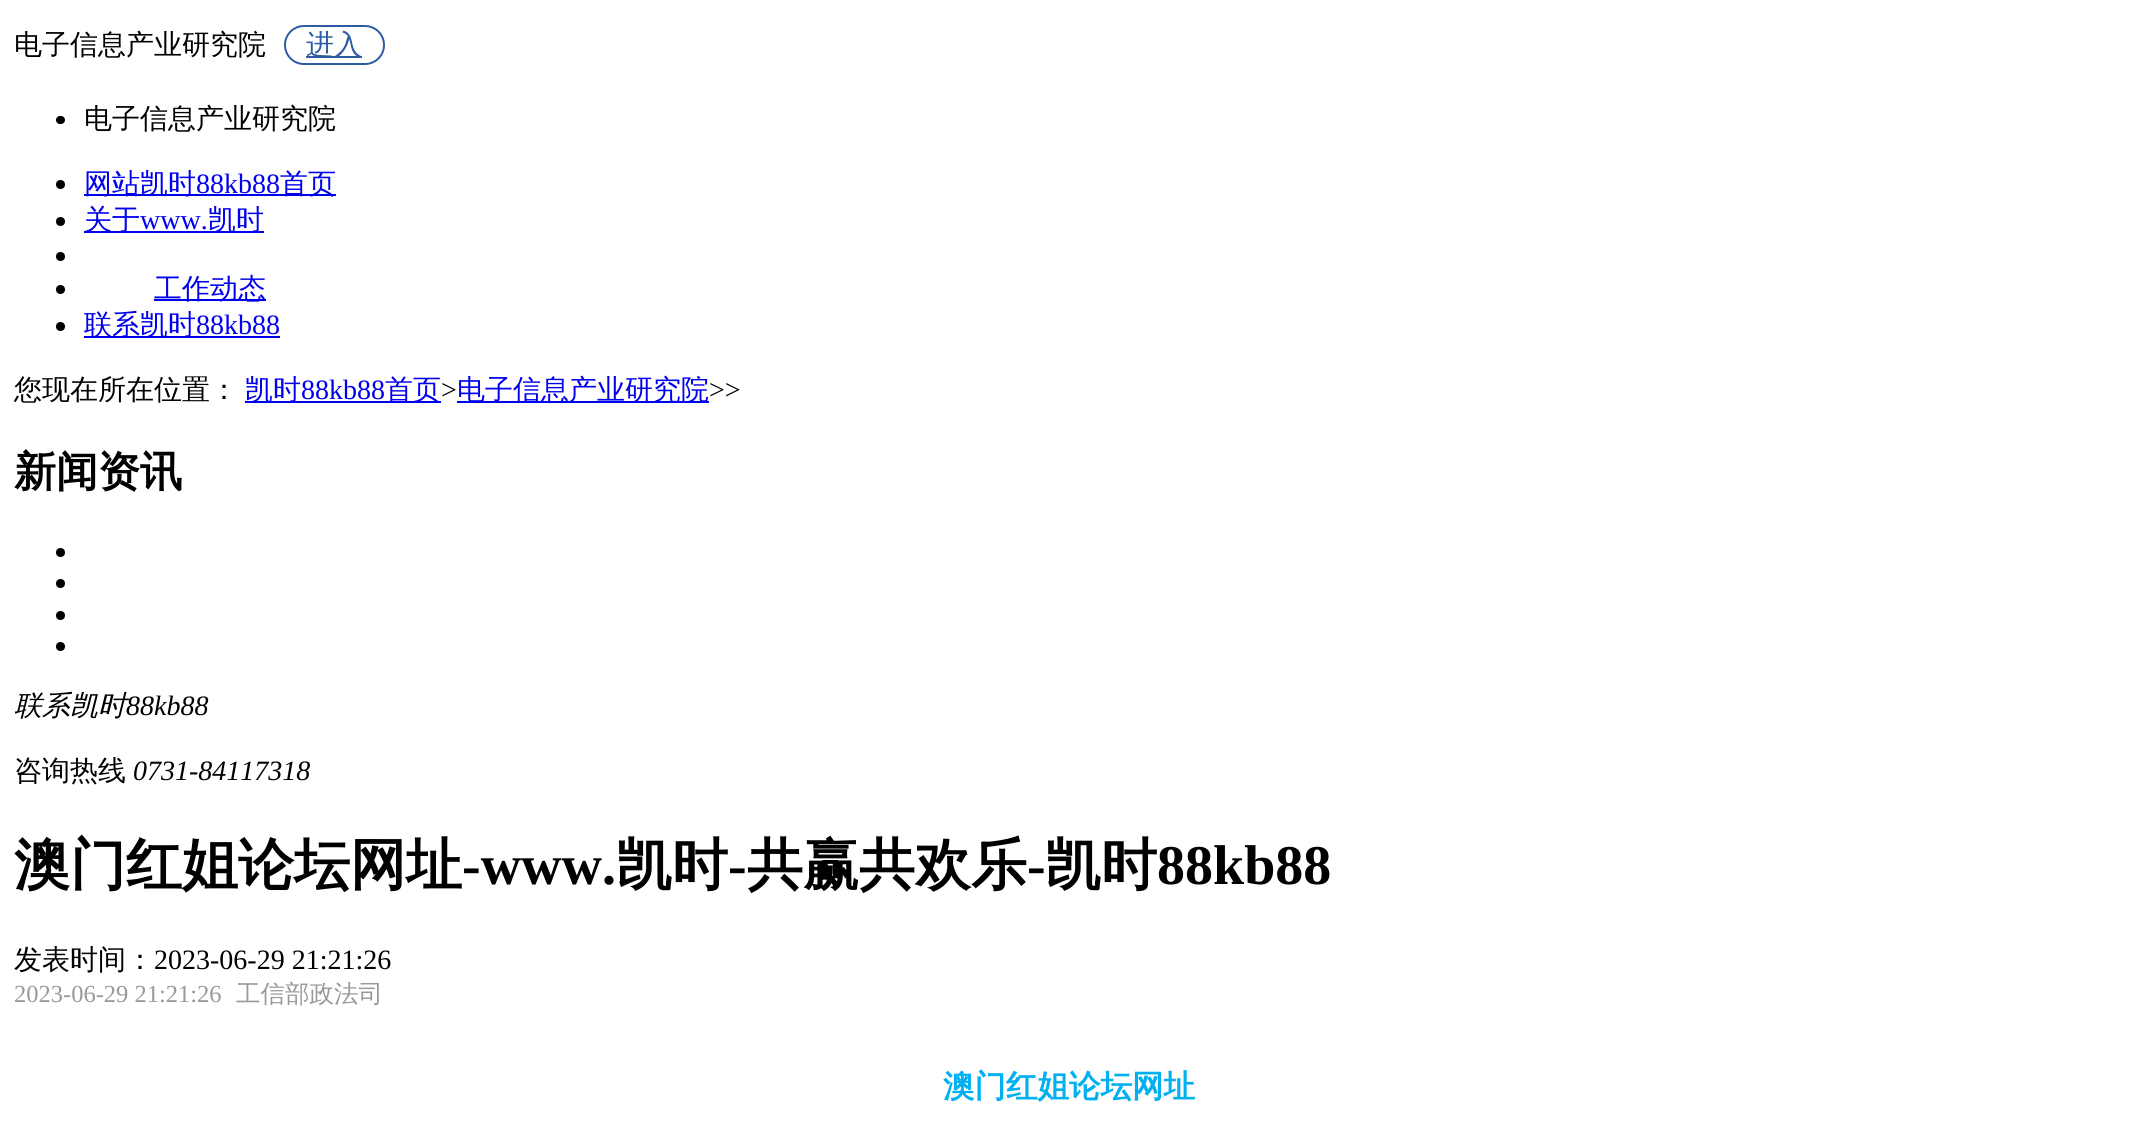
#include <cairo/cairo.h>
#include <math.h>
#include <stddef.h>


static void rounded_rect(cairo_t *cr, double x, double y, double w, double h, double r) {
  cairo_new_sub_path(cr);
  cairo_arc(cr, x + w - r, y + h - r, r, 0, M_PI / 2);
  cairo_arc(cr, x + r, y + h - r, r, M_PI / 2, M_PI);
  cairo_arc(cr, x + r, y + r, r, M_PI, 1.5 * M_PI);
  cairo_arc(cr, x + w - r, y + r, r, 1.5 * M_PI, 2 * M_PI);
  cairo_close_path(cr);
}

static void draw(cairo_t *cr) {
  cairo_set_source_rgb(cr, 1, 1, 1);
  cairo_paint(cr);
  rounded_rect(cr, 285, 26, 99, 38, 19);
  cairo_set_source_rgb(cr, 46 / 255.0, 92 / 255.0, 162 / 255.0);
  cairo_stroke(cr);
  cairo_rectangle(cr, 306, 56, 56, 2);
  cairo_fill(cr);
  cairo_set_source_rgb(cr, 0, 0, 0);
  rounded_rect(cr, 56, 116, 9, 8, 4);
  cairo_fill(cr);
  cairo_arc(cr, 60.5, 184.5, 4.5, 0, 2 * M_PI);
  cairo_fill(cr);
  cairo_set_source_rgb(cr, 0, 0, 238 / 255.0);
  cairo_rectangle(cr, 84, 194, 252, 2);
  cairo_fill(cr);
  cairo_set_source_rgb(cr, 0, 0, 0);
  cairo_arc(cr, 60.5, 221.5, 4.5, 0, 2 * M_PI);
  cairo_fill(cr);
  cairo_set_source_rgb(cr, 0, 0, 238 / 255.0);
  cairo_rectangle(cr, 84, 231, 180, 2);
  cairo_fill(cr);
  cairo_set_source_rgb(cr, 0, 0, 0);
  cairo_arc(cr, 60.5, 256.5, 4.5, 0, 2 * M_PI);
  cairo_fill(cr);
  cairo_arc(cr, 60.5, 289.5, 4.5, 0, 2 * M_PI);
  cairo_fill(cr);
  cairo_set_source_rgb(cr, 0, 0, 238 / 255.0);
  cairo_rectangle(cr, 154, 299, 112, 2);
  cairo_fill(cr);
  cairo_set_source_rgb(cr, 0, 0, 0);
  cairo_arc(cr, 60.5, 326.5, 4.5, 0, 2 * M_PI);
  cairo_fill(cr);
  cairo_set_source_rgb(cr, 0, 0, 238 / 255.0);
  cairo_rectangle(cr, 84, 336, 196, 2);
  cairo_fill(cr);
  cairo_rectangle(cr, 245, 401, 196, 2);
  cairo_fill(cr);
  cairo_rectangle(cr, 457, 401, 252, 2);
  cairo_fill(cr);
  cairo_set_source_rgb(cr, 0, 0, 0);
  cairo_arc(cr, 60.5, 552.5, 4.5, 0, 2 * M_PI);
  cairo_fill(cr);
  cairo_arc(cr, 60.5, 583.5, 4.5, 0, 2 * M_PI);
  cairo_fill(cr);
  cairo_arc(cr, 60.5, 615.5, 4.5, 0, 2 * M_PI);
  cairo_fill(cr);
  cairo_arc(cr, 60.5, 646.5, 4.5, 0, 2 * M_PI);
  cairo_fill(cr);
  cairo_select_font_face(cr, "WenQuanYi Zen Hei Medium", CAIRO_FONT_SLANT_NORMAL, CAIRO_FONT_WEIGHT_NORMAL);
  cairo_set_font_size(cr, 28);
  cairo_move_to(cr, 14, 54);
  cairo_show_text(cr, "电子信息产业研究院");
  cairo_set_source_rgb(cr, 46 / 255.0, 92 / 255.0, 162 / 255.0);
  cairo_move_to(cr, 306, 54);
  cairo_show_text(cr, "进入");
  cairo_set_source_rgb(cr, 0, 0, 0);
  cairo_move_to(cr, 84, 128);
  cairo_show_text(cr, "电子信息产业研究院");
  cairo_set_source_rgb(cr, 0, 0, 238 / 255.0);
  cairo_move_to(cr, 84, 193);
  cairo_show_text(cr, "网站凯时");
  cairo_select_font_face(cr, "Liberation Serif", CAIRO_FONT_SLANT_NORMAL, CAIRO_FONT_WEIGHT_NORMAL);
  cairo_move_to(cr, 196, 193);
  cairo_show_text(cr, "88kb88");
  cairo_select_font_face(cr, "WenQuanYi Zen Hei Medium", CAIRO_FONT_SLANT_NORMAL, CAIRO_FONT_WEIGHT_NORMAL);
  cairo_move_to(cr, 280, 193);
  cairo_show_text(cr, "首页");
  cairo_move_to(cr, 84, 229);
  cairo_show_text(cr, "关于");
  cairo_select_font_face(cr, "Liberation Serif", CAIRO_FONT_SLANT_NORMAL, CAIRO_FONT_WEIGHT_NORMAL);
  cairo_move_to(cr, 140, 229);
  cairo_show_text(cr, "www.");
  cairo_select_font_face(cr, "WenQuanYi Zen Hei Medium", CAIRO_FONT_SLANT_NORMAL, CAIRO_FONT_WEIGHT_NORMAL);
  cairo_move_to(cr, 208, 229);
  cairo_show_text(cr, "凯时");
  cairo_move_to(cr, 154, 298);
  cairo_show_text(cr, "工作动态");
  cairo_move_to(cr, 84, 334);
  cairo_show_text(cr, "联系凯时");
  cairo_select_font_face(cr, "Liberation Serif", CAIRO_FONT_SLANT_NORMAL, CAIRO_FONT_WEIGHT_NORMAL);
  cairo_move_to(cr, 196, 334);
  cairo_show_text(cr, "88kb88");
  cairo_select_font_face(cr, "WenQuanYi Zen Hei Medium", CAIRO_FONT_SLANT_NORMAL, CAIRO_FONT_WEIGHT_NORMAL);
  cairo_set_source_rgb(cr, 0, 0, 0);
  cairo_move_to(cr, 14, 399);
  cairo_show_text(cr, "您现在所在位置：");
  cairo_set_source_rgb(cr, 0, 0, 238 / 255.0);
  cairo_move_to(cr, 245, 399);
  cairo_show_text(cr, "凯时");
  cairo_select_font_face(cr, "Liberation Serif", CAIRO_FONT_SLANT_NORMAL, CAIRO_FONT_WEIGHT_NORMAL);
  cairo_move_to(cr, 301, 399);
  cairo_show_text(cr, "88kb88");
  cairo_select_font_face(cr, "WenQuanYi Zen Hei Medium", CAIRO_FONT_SLANT_NORMAL, CAIRO_FONT_WEIGHT_NORMAL);
  cairo_move_to(cr, 385, 399);
  cairo_show_text(cr, "首页");
  cairo_select_font_face(cr, "Liberation Serif", CAIRO_FONT_SLANT_NORMAL, CAIRO_FONT_WEIGHT_NORMAL);
  cairo_set_source_rgb(cr, 0, 0, 0);
  cairo_move_to(cr, 441, 399);
  cairo_show_text(cr, ">");
  cairo_select_font_face(cr, "WenQuanYi Zen Hei Medium", CAIRO_FONT_SLANT_NORMAL, CAIRO_FONT_WEIGHT_NORMAL);
  cairo_set_source_rgb(cr, 0, 0, 238 / 255.0);
  cairo_move_to(cr, 457, 399);
  cairo_show_text(cr, "电子信息产业研究院");
  cairo_select_font_face(cr, "Liberation Serif", CAIRO_FONT_SLANT_NORMAL, CAIRO_FONT_WEIGHT_NORMAL);
  cairo_set_source_rgb(cr, 0, 0, 0);
  cairo_move_to(cr, 709, 399);
  cairo_show_text(cr, ">>");
  cairo_select_font_face(cr, "WenQuanYi Zen Hei", CAIRO_FONT_SLANT_NORMAL, CAIRO_FONT_WEIGHT_BOLD);
  cairo_set_font_size(cr, 42);
  cairo_move_to(cr, 14, 486);
  cairo_show_text(cr, "新闻资讯");
  cairo_select_font_face(cr, "WenQuanYi Zen Hei Medium", CAIRO_FONT_SLANT_ITALIC, CAIRO_FONT_WEIGHT_NORMAL);
  cairo_set_font_size(cr, 28);
  cairo_move_to(cr, 14, 715);
  cairo_show_text(cr, "联系凯时");
  cairo_select_font_face(cr, "Liberation Serif", CAIRO_FONT_SLANT_ITALIC, CAIRO_FONT_WEIGHT_NORMAL);
  cairo_move_to(cr, 126, 715);
  cairo_show_text(cr, "88kb88");
  cairo_select_font_face(cr, "WenQuanYi Zen Hei Medium", CAIRO_FONT_SLANT_NORMAL, CAIRO_FONT_WEIGHT_NORMAL);
  cairo_move_to(cr, 14, 780);
  cairo_show_text(cr, "咨询热线");
  cairo_select_font_face(cr, "Liberation Serif", CAIRO_FONT_SLANT_ITALIC, CAIRO_FONT_WEIGHT_NORMAL);
  cairo_move_to(cr, 133, 780);
  cairo_show_text(cr, "0731-84117318");
  cairo_select_font_face(cr, "WenQuanYi Zen Hei", CAIRO_FONT_SLANT_NORMAL, CAIRO_FONT_WEIGHT_BOLD);
  cairo_set_font_size(cr, 56);
  cairo_move_to(cr, 14, 884);
  cairo_show_text(cr, "澳门红姐论坛网址");
  cairo_select_font_face(cr, "Liberation Serif", CAIRO_FONT_SLANT_NORMAL, CAIRO_FONT_WEIGHT_BOLD);
  cairo_move_to(cr, 462, 884);
  cairo_show_text(cr, "-www.");
  cairo_select_font_face(cr, "WenQuanYi Zen Hei", CAIRO_FONT_SLANT_NORMAL, CAIRO_FONT_WEIGHT_BOLD);
  cairo_move_to(cr, 616, 884);
  cairo_show_text(cr, "凯时");
  cairo_select_font_face(cr, "Liberation Serif", CAIRO_FONT_SLANT_NORMAL, CAIRO_FONT_WEIGHT_BOLD);
  cairo_move_to(cr, 728, 884);
  cairo_show_text(cr, "-");
  cairo_select_font_face(cr, "WenQuanYi Zen Hei", CAIRO_FONT_SLANT_NORMAL, CAIRO_FONT_WEIGHT_BOLD);
  cairo_move_to(cr, 747, 884);
  cairo_show_text(cr, "共赢共欢乐");
  cairo_select_font_face(cr, "Liberation Serif", CAIRO_FONT_SLANT_NORMAL, CAIRO_FONT_WEIGHT_BOLD);
  cairo_move_to(cr, 1027, 884);
  cairo_show_text(cr, "-");
  cairo_select_font_face(cr, "WenQuanYi Zen Hei", CAIRO_FONT_SLANT_NORMAL, CAIRO_FONT_WEIGHT_BOLD);
  cairo_move_to(cr, 1045, 884);
  cairo_show_text(cr, "凯时");
  cairo_select_font_face(cr, "Liberation Serif", CAIRO_FONT_SLANT_NORMAL, CAIRO_FONT_WEIGHT_BOLD);
  cairo_move_to(cr, 1157, 884);
  cairo_show_text(cr, "88kb88");
  cairo_select_font_face(cr, "WenQuanYi Zen Hei Medium", CAIRO_FONT_SLANT_NORMAL, CAIRO_FONT_WEIGHT_NORMAL);
  cairo_set_font_size(cr, 28);
  cairo_move_to(cr, 14, 969);
  cairo_show_text(cr, "发表时间：");
  cairo_select_font_face(cr, "Liberation Serif", CAIRO_FONT_SLANT_NORMAL, CAIRO_FONT_WEIGHT_NORMAL);
  cairo_move_to(cr, 154, 969);
  cairo_show_text(cr, "2023-06-29 21:21:26");
  cairo_set_font_size(cr, 24.5);
  cairo_set_source_rgb(cr, 153 / 255.0, 153 / 255.0, 153 / 255.0);
  cairo_move_to(cr, 14, 1002);
  cairo_show_text(cr, "2023-06-29 21:21:26");
  cairo_select_font_face(cr, "WenQuanYi Zen Hei Medium", CAIRO_FONT_SLANT_NORMAL, CAIRO_FONT_WEIGHT_NORMAL);
  cairo_move_to(cr, 236, 1002);
  cairo_show_text(cr, "工信部政法司");
  cairo_select_font_face(cr, "WenQuanYi Zen Hei", CAIRO_FONT_SLANT_NORMAL, CAIRO_FONT_WEIGHT_BOLD);
  cairo_set_font_size(cr, 31.5);
  cairo_set_source_rgb(cr, 0, 176 / 255.0, 240 / 255.0);
  cairo_move_to(cr, 943, 1097);
  cairo_show_text(cr, "澳门红姐论坛网址");
}

int main(void) {
  cairo_surface_t *surface = cairo_image_surface_create(CAIRO_FORMAT_RGB24, 2137, 1126);
  cairo_t *cr = cairo_create(surface);
  cairo_font_options_t *options = cairo_font_options_create();
  cairo_font_options_set_hint_metrics(options, CAIRO_HINT_METRICS_OFF);
  cairo_font_options_set_hint_style(options, CAIRO_HINT_STYLE_NONE);
  cairo_set_font_options(cr, options);
  cairo_set_miter_limit(cr, 4);
  draw(cr);
  cairo_surface_write_to_png(surface, "out.png");
  cairo_font_options_destroy(options);
  cairo_destroy(cr);
  cairo_surface_destroy(surface);
  return 0;
}
